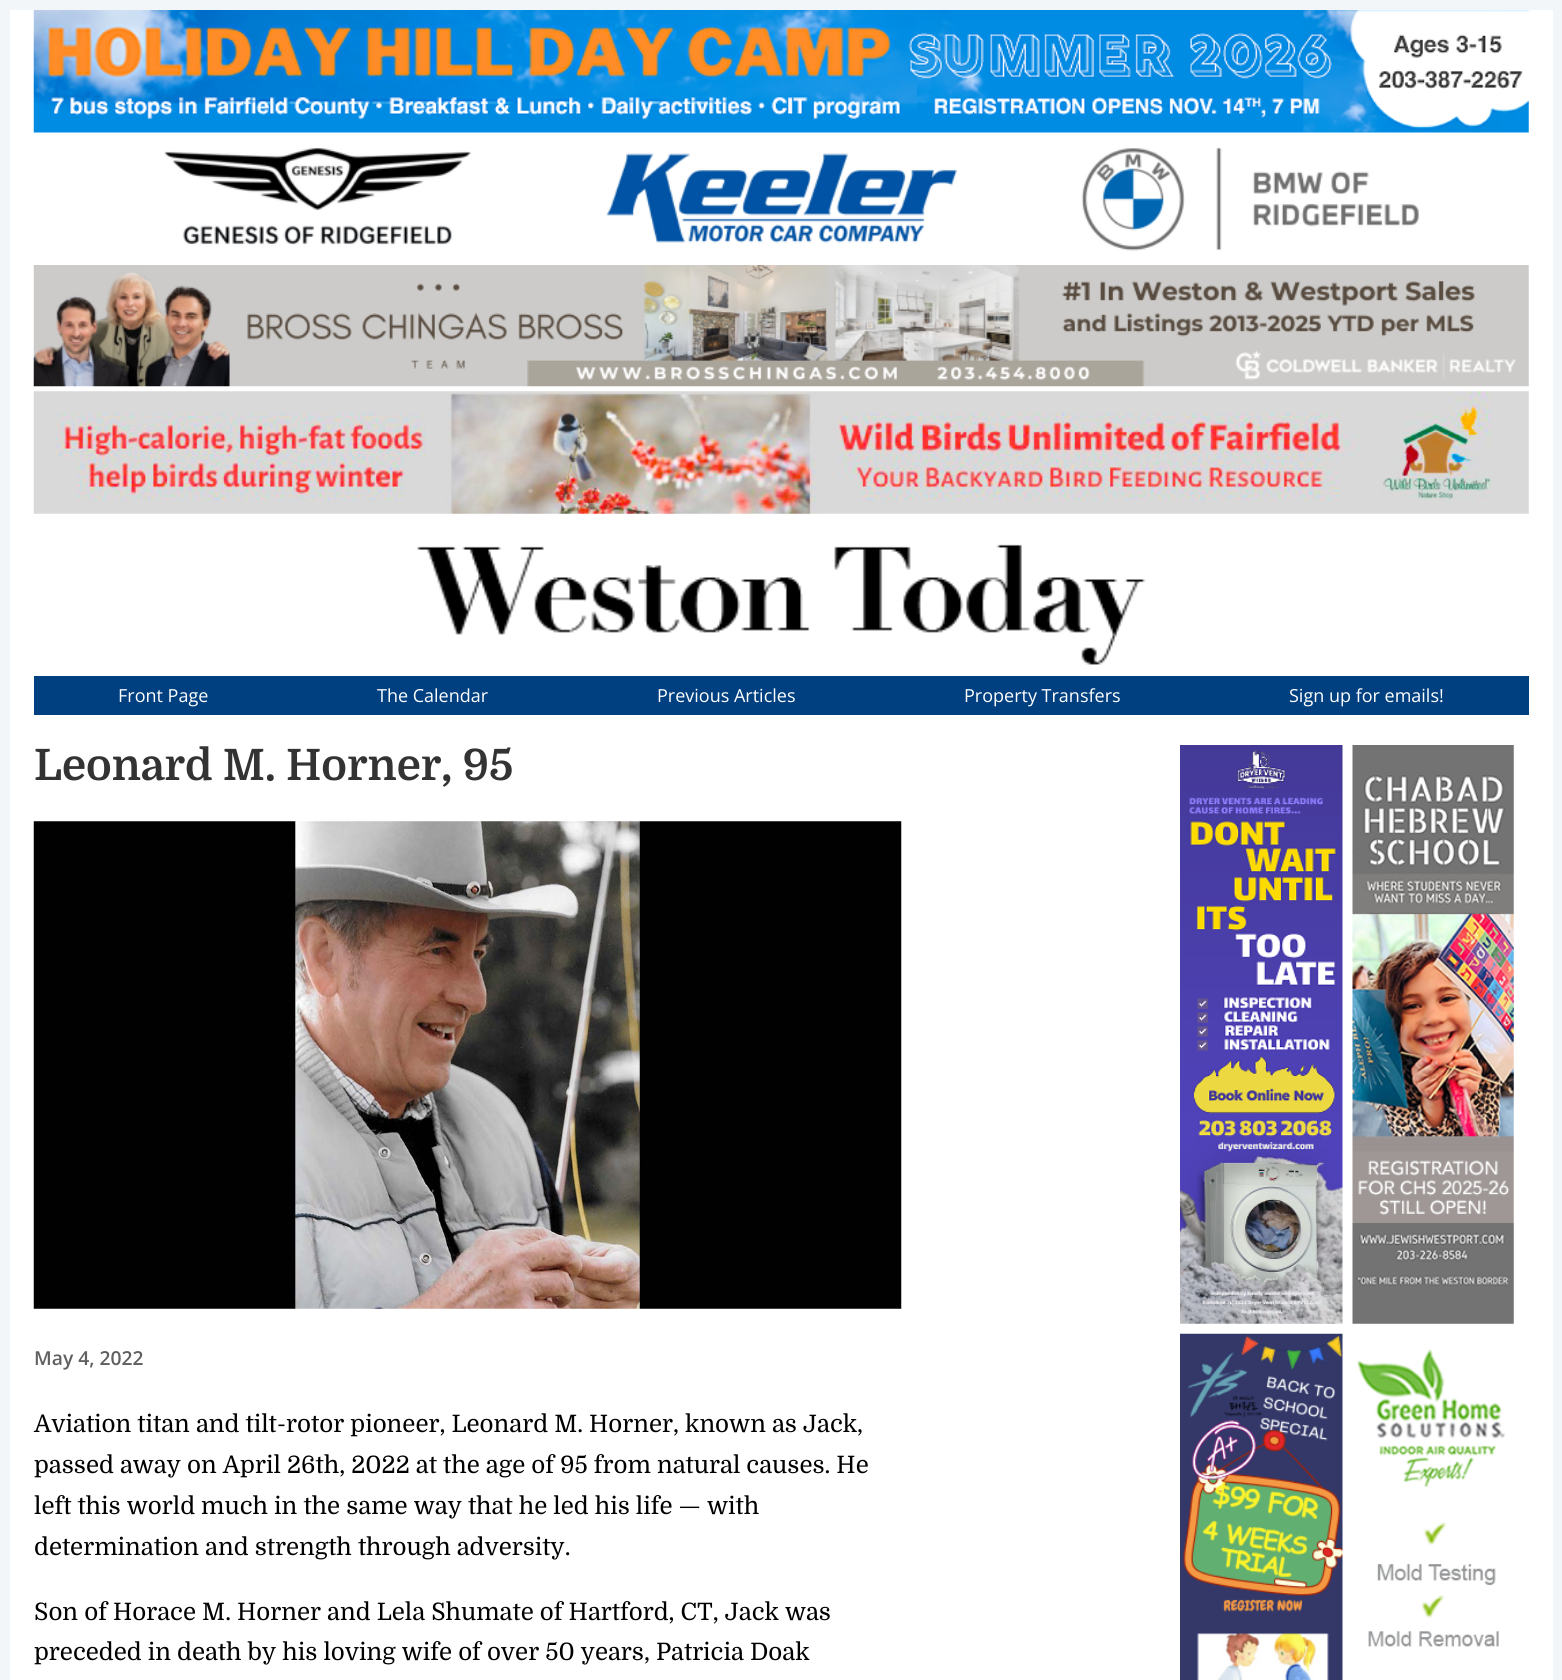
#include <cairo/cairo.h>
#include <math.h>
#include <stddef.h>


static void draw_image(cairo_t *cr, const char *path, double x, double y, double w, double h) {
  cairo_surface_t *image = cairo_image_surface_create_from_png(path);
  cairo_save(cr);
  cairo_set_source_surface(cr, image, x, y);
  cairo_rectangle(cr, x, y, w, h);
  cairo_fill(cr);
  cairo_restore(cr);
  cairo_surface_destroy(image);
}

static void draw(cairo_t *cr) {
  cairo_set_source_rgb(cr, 243 / 255.0, 246 / 255.0, 248 / 255.0);
  cairo_paint(cr);
  cairo_set_source_rgb(cr, 1, 1, 1);
  cairo_rectangle(cr, 10, 10, 1543, 1670);
  cairo_fill(cr);
  draw_image(cr, "images/1.png", 33, 10, 1496, 123);
  draw_image(cr, "images/2.png", 164, 147, 1255, 104);
  draw_image(cr, "images/3.png", 33, 265, 1496, 122);
  draw_image(cr, "images/4.png", 33, 391, 1496, 123);
  draw_image(cr, "images/5.png", 417, 544, 729, 121);
  cairo_set_source_rgb(cr, 0, 64 / 255.0, 128 / 255.0);
  cairo_rectangle(cr, 34, 676, 1495, 39);
  cairo_fill(cr);
  draw_image(cr, "images/6.png", 33, 821, 869, 488);
  draw_image(cr, "images/7.png", 1180, 745, 163, 579);
  draw_image(cr, "images/8.png", 1352, 745, 162, 579);
  draw_image(cr, "images/9.png", 1180, 1333, 163, 347);
  draw_image(cr, "images/10.png", 1356, 1349, 149, 298);
  cairo_select_font_face(cr, "Open Sans", CAIRO_FONT_SLANT_NORMAL, CAIRO_FONT_WEIGHT_NORMAL);
  cairo_set_font_size(cr, 18);
  cairo_set_source_rgb(cr, 1, 1, 1);
  cairo_move_to(cr, 118, 702);
  cairo_show_text(cr, "Front Page");
  cairo_move_to(cr, 377, 702);
  cairo_show_text(cr, "The Calendar");
  cairo_move_to(cr, 657, 702);
  cairo_show_text(cr, "Previous Articles");
  cairo_move_to(cr, 964, 702);
  cairo_show_text(cr, "Property Transfers");
  cairo_move_to(cr, 1289, 702);
  cairo_show_text(cr, "Sign up for emails!");
  cairo_select_font_face(cr, "Domine", CAIRO_FONT_SLANT_NORMAL, CAIRO_FONT_WEIGHT_BOLD);
  cairo_set_font_size(cr, 43.25);
  cairo_set_source_rgb(cr, 51 / 255.0, 51 / 255.0, 51 / 255.0);
  cairo_move_to(cr, 34, 780);
  cairo_show_text(cr, "Leonard M. Horner, 95");
  cairo_select_font_face(cr, "Open Sans SemiBold", CAIRO_FONT_SLANT_NORMAL, CAIRO_FONT_WEIGHT_NORMAL);
  cairo_set_font_size(cr, 19.25);
  cairo_set_source_rgb(cr, 96 / 255.0, 96 / 255.0, 96 / 255.0);
  cairo_move_to(cr, 34, 1365);
  cairo_show_text(cr, "May 4, 2022");
  cairo_select_font_face(cr, "Domine", CAIRO_FONT_SLANT_NORMAL, CAIRO_FONT_WEIGHT_NORMAL);
  cairo_set_font_size(cr, 24);
  cairo_set_source_rgb(cr, 0, 0, 0);
  cairo_move_to(cr, 34, 1432);
  cairo_show_text(cr, "Aviation titan and tilt-rotor pioneer, Leonard M. Horner, known as Jack,");
  cairo_move_to(cr, 34, 1473);
  cairo_show_text(cr, "passed away on April 26th, 2022 at the age of 95 from natural causes. He");
  cairo_move_to(cr, 34, 1514);
  cairo_show_text(cr, "left this world much in the same way that he led his life — with");
  cairo_move_to(cr, 34, 1555);
  cairo_show_text(cr, "determination and strength through adversity.");
  cairo_move_to(cr, 34, 1620);
  cairo_show_text(cr, "Son of Horace M. Horner and Lela Shumate of Hartford, CT, Jack was");
  cairo_move_to(cr, 34, 1660);
  cairo_show_text(cr, "preceded in death by his loving wife of over 50 years, Patricia Doak");
}

int main(void) {
  cairo_surface_t *surface = cairo_image_surface_create(CAIRO_FORMAT_RGB24, 1562, 1680);
  cairo_t *cr = cairo_create(surface);
  cairo_font_options_t *options = cairo_font_options_create();
  cairo_font_options_set_hint_metrics(options, CAIRO_HINT_METRICS_OFF);
  cairo_font_options_set_hint_style(options, CAIRO_HINT_STYLE_NONE);
  cairo_set_font_options(cr, options);
  cairo_set_miter_limit(cr, 4);
  draw(cr);
  cairo_surface_write_to_png(surface, "out.png");
  cairo_font_options_destroy(options);
  cairo_destroy(cr);
  cairo_surface_destroy(surface);
  return 0;
}
